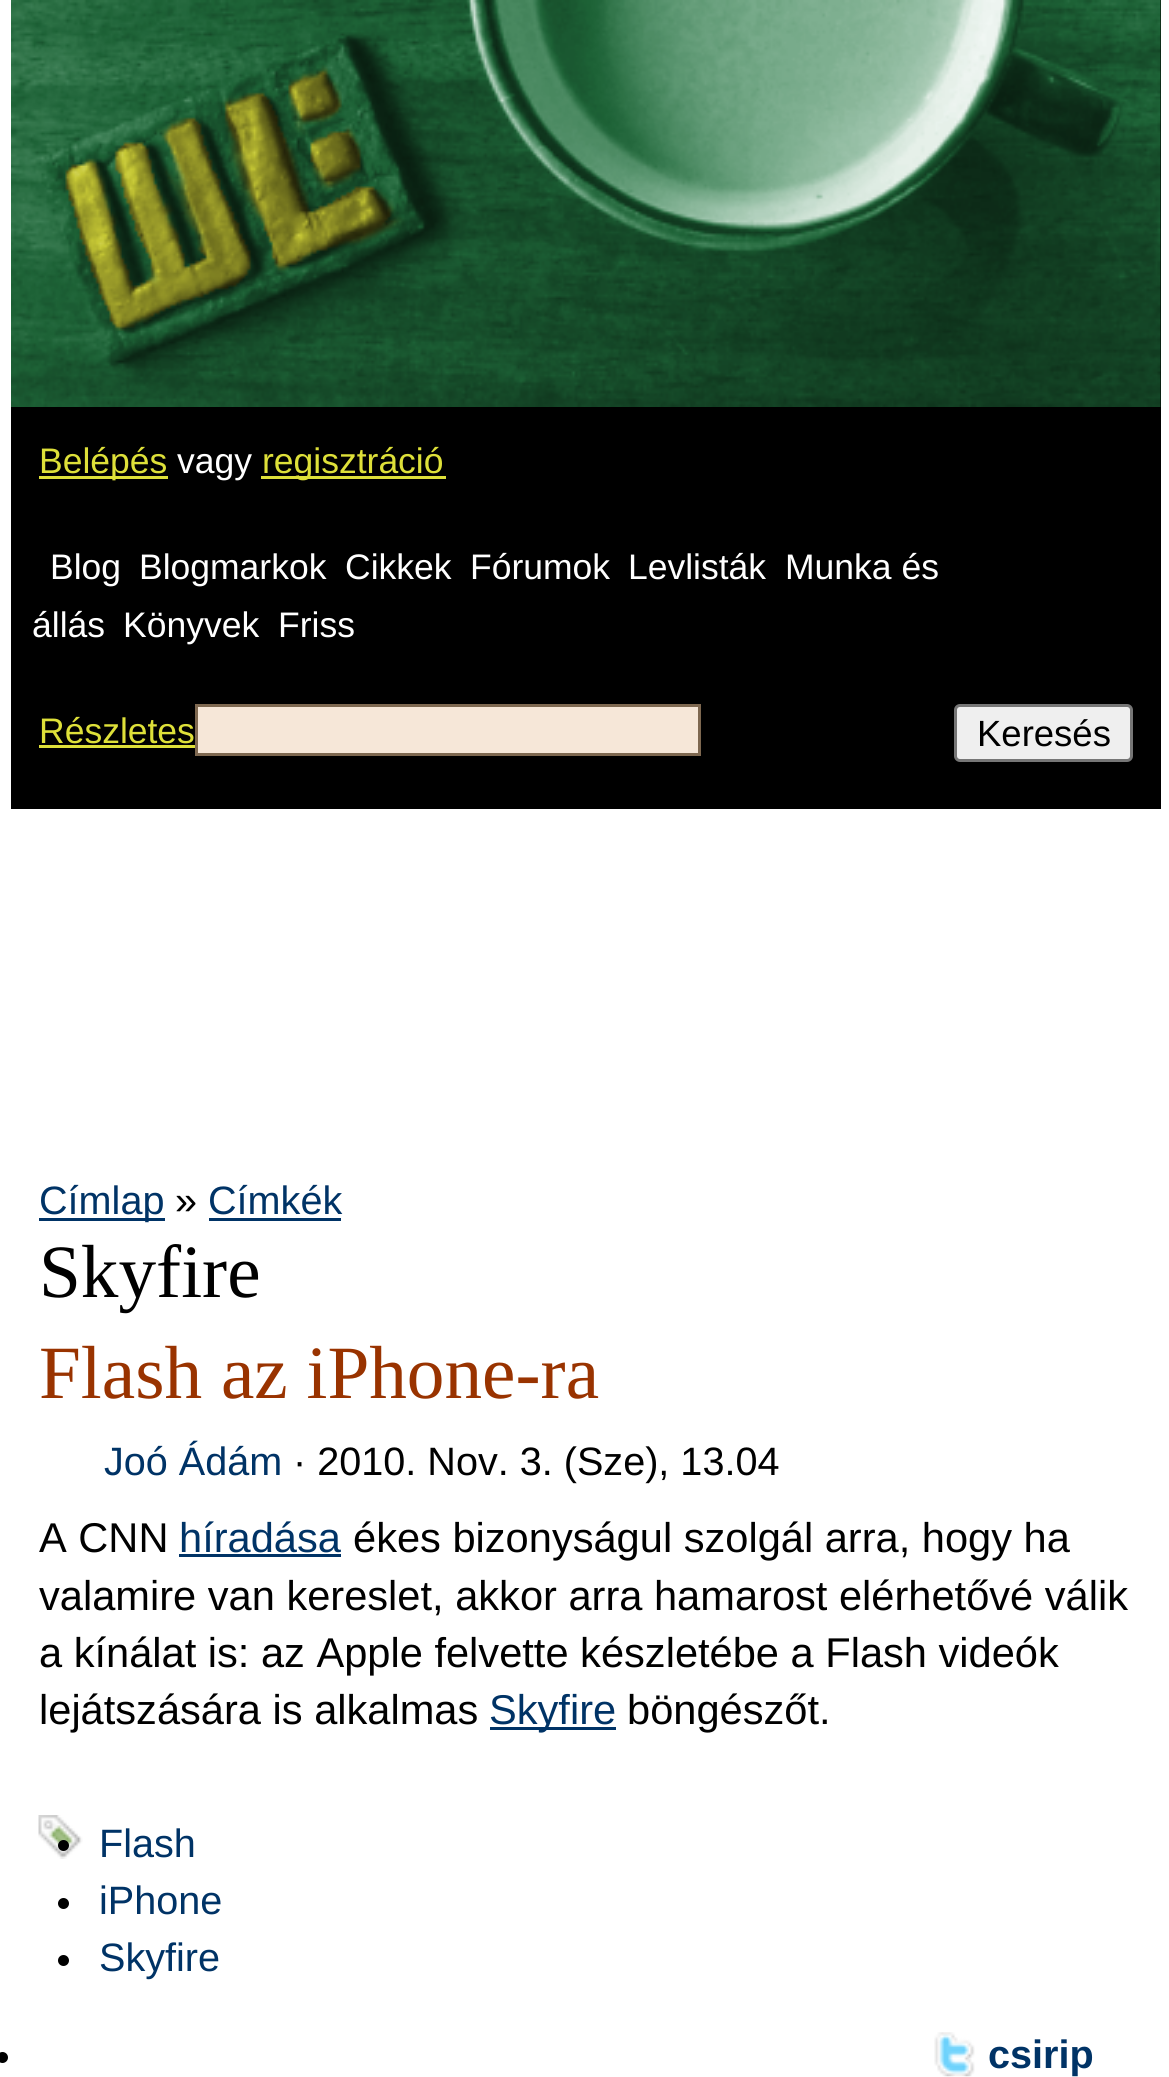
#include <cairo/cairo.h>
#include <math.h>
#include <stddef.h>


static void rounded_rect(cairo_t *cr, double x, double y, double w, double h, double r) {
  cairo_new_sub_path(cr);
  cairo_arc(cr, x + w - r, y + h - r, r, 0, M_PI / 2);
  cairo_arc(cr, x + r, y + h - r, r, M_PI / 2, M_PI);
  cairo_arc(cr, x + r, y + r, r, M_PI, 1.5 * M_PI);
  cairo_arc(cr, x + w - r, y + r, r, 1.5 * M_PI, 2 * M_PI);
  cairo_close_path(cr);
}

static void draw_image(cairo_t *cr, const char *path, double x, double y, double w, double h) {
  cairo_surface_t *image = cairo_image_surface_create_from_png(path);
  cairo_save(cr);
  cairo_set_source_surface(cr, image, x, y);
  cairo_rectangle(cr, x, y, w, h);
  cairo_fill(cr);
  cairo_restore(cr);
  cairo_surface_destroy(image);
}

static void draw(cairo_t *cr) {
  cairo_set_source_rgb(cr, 1, 1, 1);
  cairo_paint(cr);
  cairo_set_source_rgb(cr, 0, 0, 0);
  cairo_rectangle(cr, 11, 0, 1150, 809);
  cairo_fill(cr);
  draw_image(cr, "images/1.png", 11, 0, 1150, 407);
  cairo_set_source_rgb(cr, 222 / 255.0, 224 / 255.0, 57 / 255.0);
  cairo_rectangle(cr, 39, 476, 129, 3);
  cairo_fill(cr);
  cairo_rectangle(cr, 261, 476, 185, 3);
  cairo_fill(cr);
  cairo_rectangle(cr, 39, 745, 156, 3);
  cairo_fill(cr);
  cairo_set_source_rgb(cr, 246 / 255.0, 231 / 255.0, 216 / 255.0);
  cairo_rectangle(cr, 196.5, 705.5, 503, 49);
  cairo_fill_preserve(cr);
  cairo_set_source_rgb(cr, 126 / 255.0, 104 / 255.0, 80 / 255.0);
  cairo_set_line_width(cr, 3);
  cairo_stroke(cr);
  cairo_set_source_rgb(cr, 239 / 255.0, 239 / 255.0, 239 / 255.0);
  rounded_rect(cr, 955.5, 705.5, 176, 55, 4.5);
  cairo_fill_preserve(cr);
  cairo_set_source_rgb(cr, 118 / 255.0, 118 / 255.0, 118 / 255.0);
  cairo_stroke(cr);
  cairo_set_source_rgb(cr, 0, 51 / 255.0, 102 / 255.0);
  cairo_rectangle(cr, 39, 1218, 126, 3);
  cairo_fill(cr);
  cairo_rectangle(cr, 209, 1218, 132, 3);
  cairo_fill(cr);
  cairo_rectangle(cr, 179, 1554, 162, 3);
  cairo_fill(cr);
  cairo_rectangle(cr, 490, 1727, 126, 3);
  cairo_fill(cr);
  draw_image(cr, "images/2.png", 38, 1815, 45, 44);
  cairo_set_source_rgb(cr, 0, 0, 0);
  cairo_arc(cr, 63.5, 1845.5, 5.5, 0, 2 * M_PI);
  cairo_fill(cr);
  cairo_arc(cr, 63.5, 1903.5, 5.5, 0, 2 * M_PI);
  cairo_fill(cr);
  cairo_arc(cr, 63.5, 1960.5, 5.5, 0, 2 * M_PI);
  cairo_fill(cr);
  cairo_arc(cr, 2.5, 2057.5, 5.5, 0, 2 * M_PI);
  cairo_fill(cr);
  draw_image(cr, "images/3.png", 934, 2032, 41, 45);
  cairo_select_font_face(cr, "Liberation Sans", CAIRO_FONT_SLANT_NORMAL, CAIRO_FONT_WEIGHT_NORMAL);
  cairo_set_font_size(cr, 35.5);
  cairo_set_source_rgb(cr, 222 / 255.0, 224 / 255.0, 57 / 255.0);
  cairo_move_to(cr, 39, 473);
  cairo_show_text(cr, "Belépés");
  cairo_set_source_rgb(cr, 1, 1, 1);
  cairo_move_to(cr, 177, 473);
  cairo_show_text(cr, "vagy");
  cairo_set_source_rgb(cr, 222 / 255.0, 224 / 255.0, 57 / 255.0);
  cairo_move_to(cr, 262, 473);
  cairo_show_text(cr, "regisztráció");
  cairo_set_source_rgb(cr, 1, 1, 1);
  cairo_move_to(cr, 50, 579);
  cairo_show_text(cr, "Blog");
  cairo_move_to(cr, 139, 579);
  cairo_show_text(cr, "Blogmarkok");
  cairo_move_to(cr, 345, 579);
  cairo_show_text(cr, "Cikkek");
  cairo_move_to(cr, 470, 579);
  cairo_show_text(cr, "Fórumok");
  cairo_move_to(cr, 628, 579);
  cairo_show_text(cr, "Levlisták");
  cairo_move_to(cr, 785, 579);
  cairo_show_text(cr, "Munka és");
  cairo_move_to(cr, 32, 637);
  cairo_show_text(cr, "állás");
  cairo_move_to(cr, 123, 637);
  cairo_show_text(cr, "Könyvek");
  cairo_move_to(cr, 278, 637);
  cairo_show_text(cr, "Friss");
  cairo_set_source_rgb(cr, 222 / 255.0, 224 / 255.0, 57 / 255.0);
  cairo_move_to(cr, 39, 743);
  cairo_show_text(cr, "Részletes");
  cairo_set_font_size(cr, 36.5);
  cairo_set_source_rgb(cr, 0, 0, 0);
  cairo_move_to(cr, 977, 746);
  cairo_show_text(cr, "Keresés");
  cairo_set_font_size(cr, 39.6);
  cairo_set_source_rgb(cr, 0, 51 / 255.0, 102 / 255.0);
  cairo_move_to(cr, 39, 1214);
  cairo_show_text(cr, "Címlap");
  cairo_set_source_rgb(cr, 0, 0, 0);
  cairo_move_to(cr, 175, 1214);
  cairo_show_text(cr, "»");
  cairo_set_source_rgb(cr, 0, 51 / 255.0, 102 / 255.0);
  cairo_move_to(cr, 208, 1214);
  cairo_show_text(cr, "Címkék");
  cairo_select_font_face(cr, "Liberation Serif", CAIRO_FONT_SLANT_NORMAL, CAIRO_FONT_WEIGHT_NORMAL);
  cairo_set_font_size(cr, 75.25);
  cairo_set_source_rgb(cr, 0, 0, 0);
  cairo_move_to(cr, 39, 1297);
  cairo_show_text(cr, "Skyfire");
  cairo_set_source_rgb(cr, 153 / 255.0, 51 / 255.0, 0);
  cairo_move_to(cr, 39, 1398);
  cairo_show_text(cr, "Flash az iPhone-ra");
  cairo_select_font_face(cr, "Liberation Sans", CAIRO_FONT_SLANT_NORMAL, CAIRO_FONT_WEIGHT_NORMAL);
  cairo_set_font_size(cr, 39.6);
  cairo_set_source_rgb(cr, 0, 51 / 255.0, 102 / 255.0);
  cairo_move_to(cr, 104, 1475);
  cairo_show_text(cr, "Joó Ádám");
  cairo_set_source_rgb(cr, 0, 0, 0);
  cairo_move_to(cr, 293, 1475);
  cairo_show_text(cr, "· 2010. Nov. 3. (Sze), 13.04");
  cairo_set_font_size(cr, 41.6);
  cairo_move_to(cr, 39, 1552);
  cairo_show_text(cr, "A CNN");
  cairo_set_source_rgb(cr, 0, 51 / 255.0, 102 / 255.0);
  cairo_move_to(cr, 179, 1552);
  cairo_show_text(cr, "híradása");
  cairo_set_source_rgb(cr, 0, 0, 0);
  cairo_move_to(cr, 353, 1552);
  cairo_show_text(cr, "ékes bizonyságul szolgál arra, hogy ha");
  cairo_move_to(cr, 39, 1610);
  cairo_show_text(cr, "valamire van kereslet, akkor arra hamarost elérhetővé válik");
  cairo_move_to(cr, 39, 1667);
  cairo_show_text(cr, "a kínálat is: az Apple felvette készletébe a Flash videók");
  cairo_move_to(cr, 39, 1724);
  cairo_show_text(cr, "lejátszására is alkalmas");
  cairo_set_source_rgb(cr, 0, 51 / 255.0, 102 / 255.0);
  cairo_move_to(cr, 489, 1724);
  cairo_show_text(cr, "Skyfire");
  cairo_set_source_rgb(cr, 0, 0, 0);
  cairo_move_to(cr, 627, 1724);
  cairo_show_text(cr, "böngészőt.");
  cairo_set_font_size(cr, 39.6);
  cairo_set_source_rgb(cr, 0, 51 / 255.0, 102 / 255.0);
  cairo_move_to(cr, 99, 1857);
  cairo_show_text(cr, "Flash");
  cairo_move_to(cr, 99, 1914);
  cairo_show_text(cr, "iPhone");
  cairo_move_to(cr, 99, 1971);
  cairo_show_text(cr, "Skyfire");
  cairo_select_font_face(cr, "Liberation Sans", CAIRO_FONT_SLANT_NORMAL, CAIRO_FONT_WEIGHT_BOLD);
  cairo_move_to(cr, 988, 2068);
  cairo_show_text(cr, "csirip");
}

int main(void) {
  cairo_surface_t *surface = cairo_image_surface_create(CAIRO_FORMAT_RGB24, 1169, 2077);
  cairo_t *cr = cairo_create(surface);
  cairo_font_options_t *options = cairo_font_options_create();
  cairo_font_options_set_hint_metrics(options, CAIRO_HINT_METRICS_OFF);
  cairo_font_options_set_hint_style(options, CAIRO_HINT_STYLE_NONE);
  cairo_set_font_options(cr, options);
  cairo_set_miter_limit(cr, 4);
  draw(cr);
  cairo_surface_write_to_png(surface, "out.png");
  cairo_font_options_destroy(options);
  cairo_destroy(cr);
  cairo_surface_destroy(surface);
  return 0;
}
